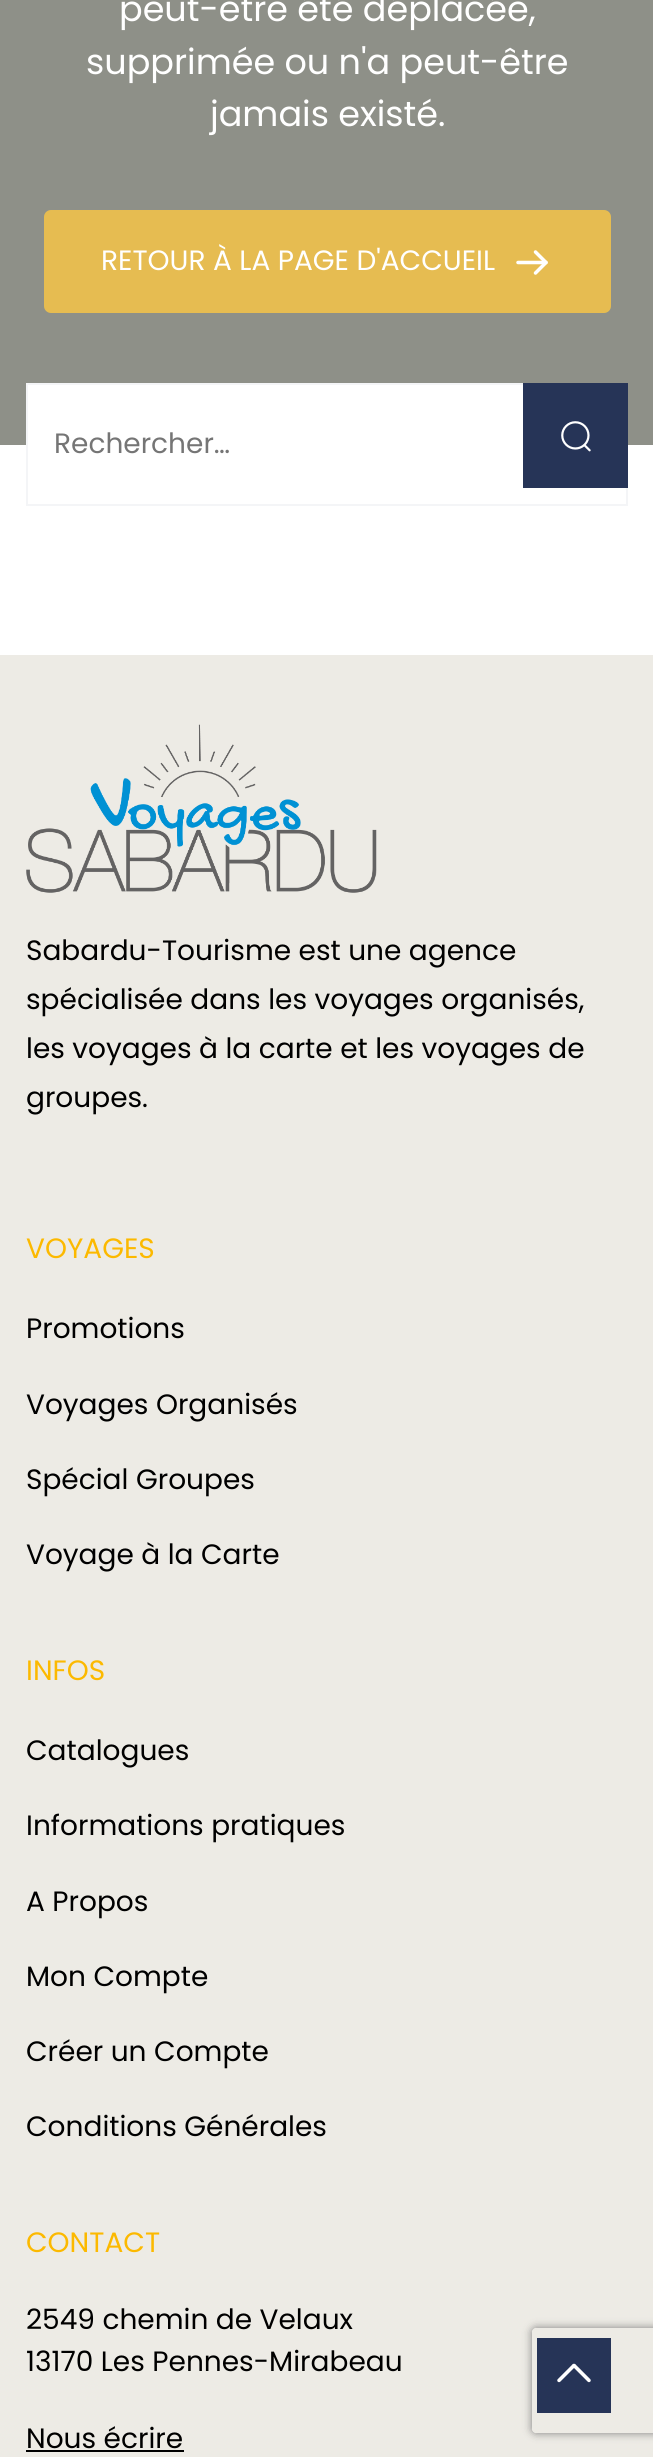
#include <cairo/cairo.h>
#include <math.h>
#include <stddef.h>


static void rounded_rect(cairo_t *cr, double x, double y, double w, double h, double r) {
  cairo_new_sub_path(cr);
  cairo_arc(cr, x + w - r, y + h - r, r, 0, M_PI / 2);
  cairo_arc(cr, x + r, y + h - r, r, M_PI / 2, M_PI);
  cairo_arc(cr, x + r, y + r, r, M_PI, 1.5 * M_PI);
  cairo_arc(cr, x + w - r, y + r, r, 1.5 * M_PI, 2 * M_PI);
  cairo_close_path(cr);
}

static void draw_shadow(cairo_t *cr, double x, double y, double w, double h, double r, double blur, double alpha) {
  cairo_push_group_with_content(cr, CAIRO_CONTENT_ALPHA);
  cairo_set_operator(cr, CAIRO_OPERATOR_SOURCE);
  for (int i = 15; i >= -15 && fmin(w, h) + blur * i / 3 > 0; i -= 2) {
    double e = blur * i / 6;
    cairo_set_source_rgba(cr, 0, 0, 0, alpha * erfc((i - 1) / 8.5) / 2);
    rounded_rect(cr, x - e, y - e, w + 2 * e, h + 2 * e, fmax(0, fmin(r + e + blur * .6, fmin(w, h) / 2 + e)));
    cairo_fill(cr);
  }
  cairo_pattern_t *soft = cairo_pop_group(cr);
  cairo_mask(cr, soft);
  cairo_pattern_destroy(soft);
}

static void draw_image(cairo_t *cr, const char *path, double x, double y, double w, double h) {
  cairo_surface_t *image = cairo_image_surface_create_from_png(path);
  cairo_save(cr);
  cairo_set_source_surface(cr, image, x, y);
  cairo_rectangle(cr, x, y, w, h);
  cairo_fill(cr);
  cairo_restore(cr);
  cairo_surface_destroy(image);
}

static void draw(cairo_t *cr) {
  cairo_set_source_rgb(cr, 1, 1, 1);
  cairo_paint(cr);
  cairo_set_source_rgb(cr, 142 / 255.0, 144 / 255.0, 136 / 255.0);
  cairo_rectangle(cr, 0, 0, 653, 445);
  cairo_fill(cr);
  cairo_set_source_rgb(cr, 230 / 255.0, 188 / 255.0, 81 / 255.0);
  rounded_rect(cr, 45, 211, 565, 101, 6);
  cairo_fill_preserve(cr);
  cairo_stroke(cr);
  cairo_new_path(cr);
  cairo_move_to(cr, 518, 262.5);
  cairo_line_to(cr, 546, 262.5);
  cairo_set_source_rgb(cr, 1, 1, 1);
  cairo_set_line_width(cr, 3.5);
  cairo_set_line_cap(cr, CAIRO_LINE_CAP_ROUND);
  cairo_stroke(cr);
  cairo_new_path(cr);
  cairo_move_to(cr, 535.5, 252);
  cairo_line_to(cr, 546, 262.5);
  cairo_line_to(cr, 535.5, 273);
  cairo_set_line_join(cr, CAIRO_LINE_JOIN_ROUND);
  cairo_stroke(cr);
  cairo_rectangle(cr, 28, 385, 598, 60);
  cairo_fill(cr);
  cairo_rectangle(cr, 27, 384, 600, 121);
  cairo_set_source_rgb(cr, 244 / 255.0, 245 / 255.0, 247 / 255.0);
  cairo_set_line_width(cr, 2);
  cairo_set_line_cap(cr, CAIRO_LINE_CAP_BUTT);
  cairo_set_line_join(cr, CAIRO_LINE_JOIN_MITER);
  cairo_stroke(cr);
  cairo_set_source_rgb(cr, 38 / 255.0, 52 / 255.0, 87 / 255.0);
  cairo_rectangle(cr, 523, 383, 105, 105);
  cairo_fill(cr);
  draw_image(cr, "images/1.png", 561, 421, 30, 31);
  cairo_set_source_rgb(cr, 237 / 255.0, 235 / 255.0, 229 / 255.0);
  cairo_rectangle(cr, 0, 655, 653, 1802);
  cairo_fill(cr);
  draw_image(cr, "images/2.png", 26, 724, 351, 169);
  cairo_set_source_rgb(cr, 0, 0, 0);
  cairo_rectangle(cr, 26, 2450, 158, 2);
  cairo_fill(cr);
  cairo_set_source_rgb(cr, 38 / 255.0, 52 / 255.0, 87 / 255.0);
  cairo_rectangle(cr, 537, 2338, 74, 75);
  cairo_fill(cr);
  draw_image(cr, "images/3.png", 557, 2363, 34, 20);
  cairo_save(cr);
  cairo_set_fill_rule(cr, CAIRO_FILL_RULE_EVEN_ODD);
  cairo_new_path(cr);
  cairo_move_to(cr, 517, 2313);
  cairo_line_to(cr, 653, 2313);
  cairo_line_to(cr, 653, 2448);
  cairo_line_to(cr, 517, 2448);
  cairo_close_path(cr);
  cairo_move_to(cr, 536, 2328);
  cairo_line_to(cr, 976, 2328);
  cairo_curve_to(cr, 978, 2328, 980, 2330, 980, 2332);
  cairo_line_to(cr, 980, 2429);
  cairo_curve_to(cr, 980, 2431, 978, 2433, 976, 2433);
  cairo_line_to(cr, 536, 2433);
  cairo_curve_to(cr, 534, 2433, 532, 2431, 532, 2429);
  cairo_line_to(cr, 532, 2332);
  cairo_curve_to(cr, 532, 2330, 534, 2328, 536, 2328);
  cairo_close_path(cr);
  cairo_clip(cr);
  cairo_set_source_rgb(cr, 128 / 255.0, 128 / 255.0, 128 / 255.0);
  draw_shadow(cr, 532, 2328, 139, 105, 4, 4.5, 1);
  cairo_restore(cr);
  cairo_select_font_face(cr, "Poppins", CAIRO_FONT_SLANT_NORMAL, CAIRO_FONT_WEIGHT_NORMAL);
  cairo_set_font_size(cr, 35);
  cairo_set_source_rgb(cr, 1, 1, 1);
  cairo_move_to(cr, 119, 21);
  cairo_show_text(cr, "peut-être été déplacée,");
  cairo_move_to(cr, 86, 74);
  cairo_show_text(cr, "supprimée ou n'a peut-être");
  cairo_move_to(cr, 210, 126);
  cairo_show_text(cr, "jamais existé.");
  cairo_set_font_size(cr, 28);
  cairo_move_to(cr, 101, 270);
  cairo_show_text(cr, "RETOUR À LA PAGE D'ACCUEIL");
  cairo_set_source_rgb(cr, 117 / 255.0, 117 / 255.0, 117 / 255.0);
  cairo_move_to(cr, 54, 453);
  cairo_show_text(cr, "Rechercher…");
  cairo_set_source_rgb(cr, 0, 0, 0);
  cairo_move_to(cr, 26, 960);
  cairo_show_text(cr, "Sabardu-Tourisme est une agence");
  cairo_move_to(cr, 26, 1009);
  cairo_show_text(cr, "spécialisée dans les voyages organisés,");
  cairo_move_to(cr, 26, 1058);
  cairo_show_text(cr, "les voyages à la carte et les voyages de");
  cairo_move_to(cr, 26, 1107);
  cairo_show_text(cr, "groupes.");
  cairo_set_source_rgb(cr, 252 / 255.0, 185 / 255.0, 0);
  cairo_move_to(cr, 26, 1258);
  cairo_show_text(cr, "VOYAGES");
  cairo_set_source_rgb(cr, 0, 0, 0);
  cairo_move_to(cr, 26, 1338);
  cairo_show_text(cr, "Promotions");
  cairo_move_to(cr, 26, 1414);
  cairo_show_text(cr, "Voyages Organisés");
  cairo_move_to(cr, 26, 1489);
  cairo_show_text(cr, "Spécial Groupes");
  cairo_move_to(cr, 26, 1564);
  cairo_show_text(cr, "Voyage à la Carte");
  cairo_set_source_rgb(cr, 252 / 255.0, 185 / 255.0, 0);
  cairo_move_to(cr, 26, 1680);
  cairo_show_text(cr, "INFOS");
  cairo_set_source_rgb(cr, 0, 0, 0);
  cairo_move_to(cr, 26, 1760);
  cairo_show_text(cr, "Catalogues");
  cairo_move_to(cr, 26, 1835);
  cairo_show_text(cr, "Informations pratiques");
  cairo_move_to(cr, 26, 1911);
  cairo_show_text(cr, "A Propos");
  cairo_move_to(cr, 26, 1986);
  cairo_show_text(cr, "Mon Compte");
  cairo_move_to(cr, 26, 2061);
  cairo_show_text(cr, "Créer un Compte");
  cairo_move_to(cr, 26, 2136);
  cairo_show_text(cr, "Conditions Générales");
  cairo_set_source_rgb(cr, 252 / 255.0, 185 / 255.0, 0);
  cairo_move_to(cr, 26, 2252);
  cairo_show_text(cr, "CONTACT");
  cairo_set_source_rgb(cr, 0, 0, 0);
  cairo_move_to(cr, 26, 2329);
  cairo_show_text(cr, "2549 chemin de Velaux");
  cairo_move_to(cr, 26, 2371);
  cairo_show_text(cr, "13170 Les Pennes-Mirabeau");
  cairo_move_to(cr, 26, 2448);
  cairo_show_text(cr, "Nous écrire");
}

int main(void) {
  cairo_surface_t *surface = cairo_image_surface_create(CAIRO_FORMAT_RGB24, 653, 2457);
  cairo_t *cr = cairo_create(surface);
  cairo_font_options_t *options = cairo_font_options_create();
  cairo_font_options_set_hint_metrics(options, CAIRO_HINT_METRICS_OFF);
  cairo_font_options_set_hint_style(options, CAIRO_HINT_STYLE_NONE);
  cairo_set_font_options(cr, options);
  cairo_set_miter_limit(cr, 4);
  draw(cr);
  cairo_surface_write_to_png(surface, "out.png");
  cairo_font_options_destroy(options);
  cairo_destroy(cr);
  cairo_surface_destroy(surface);
  return 0;
}
